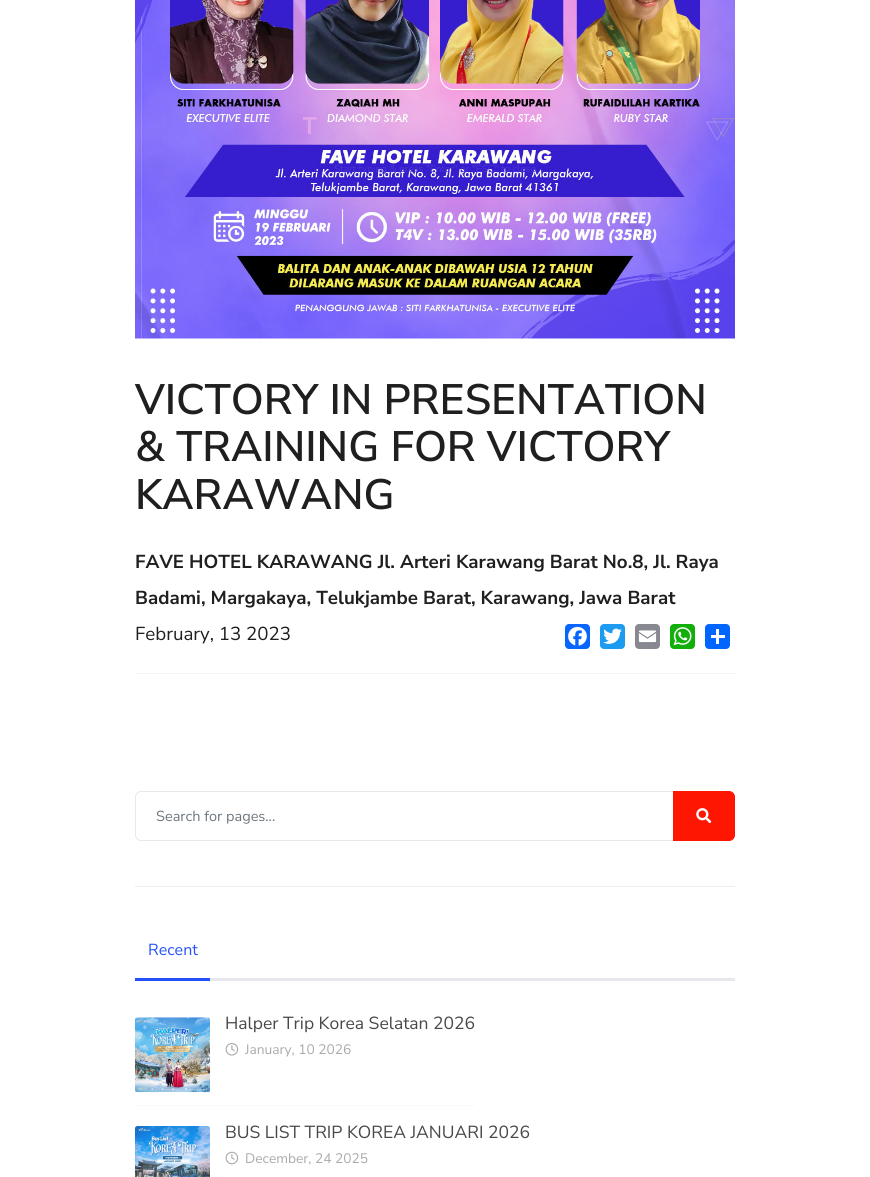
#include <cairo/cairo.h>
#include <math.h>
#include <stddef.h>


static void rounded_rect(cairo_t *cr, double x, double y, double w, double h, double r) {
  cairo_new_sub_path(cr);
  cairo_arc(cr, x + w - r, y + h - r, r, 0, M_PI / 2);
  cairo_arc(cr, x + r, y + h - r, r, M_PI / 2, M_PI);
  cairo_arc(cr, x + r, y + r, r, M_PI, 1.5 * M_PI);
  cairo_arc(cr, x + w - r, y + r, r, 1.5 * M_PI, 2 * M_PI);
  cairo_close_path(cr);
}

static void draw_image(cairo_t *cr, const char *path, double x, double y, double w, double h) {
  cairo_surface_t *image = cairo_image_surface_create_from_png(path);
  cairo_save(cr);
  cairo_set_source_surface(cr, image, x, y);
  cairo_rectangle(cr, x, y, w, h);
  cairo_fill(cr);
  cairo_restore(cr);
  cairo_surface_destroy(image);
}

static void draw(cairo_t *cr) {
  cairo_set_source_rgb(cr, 1, 1, 1);
  cairo_paint(cr);
  draw_image(cr, "images/1.png", 135, 0, 600, 339);
  cairo_set_source_rgb(cr, 243 / 255.0, 243 / 255.0, 243 / 255.0);
  cairo_rectangle(cr, 135, 673, 600, 1);
  cairo_fill(cr);
  cairo_set_source_rgb(cr, 8 / 255.0, 102 / 255.0, 1);
  rounded_rect(cr, 565, 624, 25, 25, 4);
  cairo_fill(cr);
  draw_image(cr, "images/2.png", 568, 626, 19, 20);
  cairo_set_source_rgb(cr, 29 / 255.0, 155 / 255.0, 240 / 255.0);
  rounded_rect(cr, 600, 624, 25, 25, 4);
  cairo_fill(cr);
  draw_image(cr, "images/3.png", 603, 628, 19, 16);
  cairo_set_source_rgb(cr, 136 / 255.0, 137 / 255.0, 144 / 255.0);
  rounded_rect(cr, 635, 624, 25, 25, 4);
  cairo_fill(cr);
  draw_image(cr, "images/4.png", 638, 630, 19, 13);
  cairo_set_source_rgb(cr, 18 / 255.0, 175 / 255.0, 10 / 255.0);
  rounded_rect(cr, 670, 624, 25, 25, 4);
  cairo_fill(cr);
  draw_image(cr, "images/5.png", 673, 627, 19, 19);
  cairo_set_source_rgb(cr, 1 / 255.0, 102 / 255.0, 1);
  rounded_rect(cr, 705, 624, 25, 25, 4);
  cairo_fill(cr);
  cairo_set_source_rgb(cr, 1, 1, 1);
  cairo_rectangle(cr, 716, 629, 3, 15);
  cairo_fill(cr);
  cairo_rectangle(cr, 711, 635, 14, 3);
  cairo_fill(cr);
  cairo_set_source_rgb(cr, 238 / 255.0, 238 / 255.0, 238 / 255.0);
  cairo_rectangle(cr, 135, 886, 600, 1);
  cairo_fill(cr);
  cairo_new_path(cr);
  cairo_move_to(cr, 141, 791.5);
  cairo_line_to(cr, 678.5, 791.5);
  cairo_line_to(cr, 678.5, 840.5);
  cairo_line_to(cr, 141, 840.5);
  cairo_curve_to(cr, 138, 840.5, 135.5, 838, 135.5, 835);
  cairo_line_to(cr, 135.5, 797);
  cairo_curve_to(cr, 135.5, 794, 138, 791.5, 141, 791.5);
  cairo_close_path(cr);
  cairo_set_source_rgb(cr, 230 / 255.0, 232 / 255.0, 235 / 255.0);
  cairo_set_line_width(cr, 1);
  cairo_stroke(cr);
  cairo_set_source_rgb(cr, 1, 22 / 255.0, 0);
  cairo_new_path(cr);
  cairo_move_to(cr, 673.5, 791.5);
  cairo_line_to(cr, 729, 791.5);
  cairo_curve_to(cr, 732, 791.5, 734.5, 794, 734.5, 797);
  cairo_line_to(cr, 734.5, 835);
  cairo_curve_to(cr, 734.5, 838, 732, 840.5, 729, 840.5);
  cairo_line_to(cr, 673.5, 840.5);
  cairo_close_path(cr);
  cairo_fill_preserve(cr);
  cairo_stroke(cr);
  draw_image(cr, "images/6.png", 696, 808, 16, 16);
  cairo_set_source_rgb(cr, 230 / 255.0, 232 / 255.0, 235 / 255.0);
  cairo_rectangle(cr, 210, 978, 525, 3);
  cairo_fill(cr);
  cairo_set_source_rgb(cr, 34 / 255.0, 80 / 255.0, 252 / 255.0);
  cairo_rectangle(cr, 135, 978, 75, 3);
  cairo_fill(cr);
  cairo_set_source_rgb(cr, 247 / 255.0, 249 / 255.0, 251 / 255.0);
  cairo_rectangle(cr, 135, 1105, 340, 1);
  cairo_fill(cr);
  draw_image(cr, "images/7.png", 135, 1017, 75, 76);
  draw_image(cr, "images/8.png", 225, 1043, 14, 13);
  draw_image(cr, "images/9.png", 135, 1126, 75, 51);
  draw_image(cr, "images/10.png", 225, 1151, 14, 14);
  cairo_save(cr);
  cairo_rectangle(cr, 303, 110, 265, 33);
  cairo_clip(cr);
  cairo_select_font_face(cr, "Nunito Sans", CAIRO_FONT_SLANT_NORMAL, CAIRO_FONT_WEIGHT_BOLD);
  cairo_set_font_size(cr, 24);
  cairo_set_source_rgb(cr, 225 / 255.0, 166 / 255.0, 232 / 255.0);
  cairo_move_to(cr, 302, 134);
  cairo_show_text(cr, "T");
  cairo_restore(cr);
  cairo_select_font_face(cr, "Nunito Sans", CAIRO_FONT_SLANT_NORMAL, CAIRO_FONT_WEIGHT_NORMAL);
  cairo_set_font_size(cr, 10);
  cairo_set_source_rgb(cr, 74 / 255.0, 52 / 255.0, 209 / 255.0);
  cairo_move_to(cr, 334, 172);
  cairo_show_text(cr, "Start typing & press \"Enter\" or \"ESC\" to close");
  cairo_select_font_face(cr, "Nunito Sans SemiBold", CAIRO_FONT_SLANT_NORMAL, CAIRO_FONT_WEIGHT_NORMAL);
  cairo_set_font_size(cr, 42.5);
  cairo_set_source_rgb(cr, 31 / 255.0, 31 / 255.0, 31 / 255.0);
  cairo_move_to(cr, 135, 414);
  cairo_show_text(cr, "VICTORY IN PRESENTATION");
  cairo_move_to(cr, 135, 461);
  cairo_show_text(cr, "& TRAINING FOR VICTORY");
  cairo_move_to(cr, 135, 509);
  cairo_show_text(cr, "KARAWANG");
  cairo_select_font_face(cr, "Nunito Sans", CAIRO_FONT_SLANT_NORMAL, CAIRO_FONT_WEIGHT_BOLD);
  cairo_set_font_size(cr, 18.75);
  cairo_move_to(cr, 135, 568);
  cairo_show_text(cr, "FAVE HOTEL KARAWANG Jl. Arteri Karawang Barat No.8, Jl. Raya");
  cairo_move_to(cr, 135, 604);
  cairo_show_text(cr, "Badami, Margakaya, Telukjambe Barat, Karawang, Jawa Barat");
  cairo_select_font_face(cr, "Nunito Sans", CAIRO_FONT_SLANT_NORMAL, CAIRO_FONT_WEIGHT_NORMAL);
  cairo_move_to(cr, 135, 640);
  cairo_show_text(cr, "February, 13 2023");
  cairo_set_font_size(cr, 14.5);
  cairo_set_source_rgb(cr, 108 / 255.0, 117 / 255.0, 125 / 255.0);
  cairo_move_to(cr, 156, 821);
  cairo_show_text(cr, "Search for pages...");
  cairo_set_font_size(cr, 16);
  cairo_set_source_rgb(cr, 34 / 255.0, 80 / 255.0, 252 / 255.0);
  cairo_move_to(cr, 148, 955);
  cairo_show_text(cr, "Recent");
  cairo_set_font_size(cr, 17.5);
  cairo_set_source_rgb(cr, 72 / 255.0, 72 / 255.0, 72 / 255.0);
  cairo_move_to(cr, 225, 1029);
  cairo_show_text(cr, "Halper Trip Korea Selatan 2026");
  cairo_set_font_size(cr, 13.75);
  cairo_set_source_rgb(cr, 170 / 255.0, 170 / 255.0, 170 / 255.0);
  cairo_move_to(cr, 245, 1054);
  cairo_show_text(cr, "January, 10 2026");
  cairo_set_font_size(cr, 17.5);
  cairo_set_source_rgb(cr, 72 / 255.0, 72 / 255.0, 72 / 255.0);
  cairo_move_to(cr, 225, 1138);
  cairo_show_text(cr, "BUS LIST TRIP KOREA JANUARI 2026");
  cairo_set_font_size(cr, 13.75);
  cairo_set_source_rgb(cr, 170 / 255.0, 170 / 255.0, 170 / 255.0);
  cairo_move_to(cr, 245, 1163);
  cairo_show_text(cr, "December, 24 2025");
}

int main(void) {
  cairo_surface_t *surface = cairo_image_surface_create(CAIRO_FORMAT_RGB24, 870, 1177);
  cairo_t *cr = cairo_create(surface);
  cairo_font_options_t *options = cairo_font_options_create();
  cairo_font_options_set_hint_metrics(options, CAIRO_HINT_METRICS_OFF);
  cairo_font_options_set_hint_style(options, CAIRO_HINT_STYLE_NONE);
  cairo_set_font_options(cr, options);
  cairo_set_miter_limit(cr, 4);
  draw(cr);
  cairo_surface_write_to_png(surface, "out.png");
  cairo_font_options_destroy(options);
  cairo_destroy(cr);
  cairo_surface_destroy(surface);
  return 0;
}
